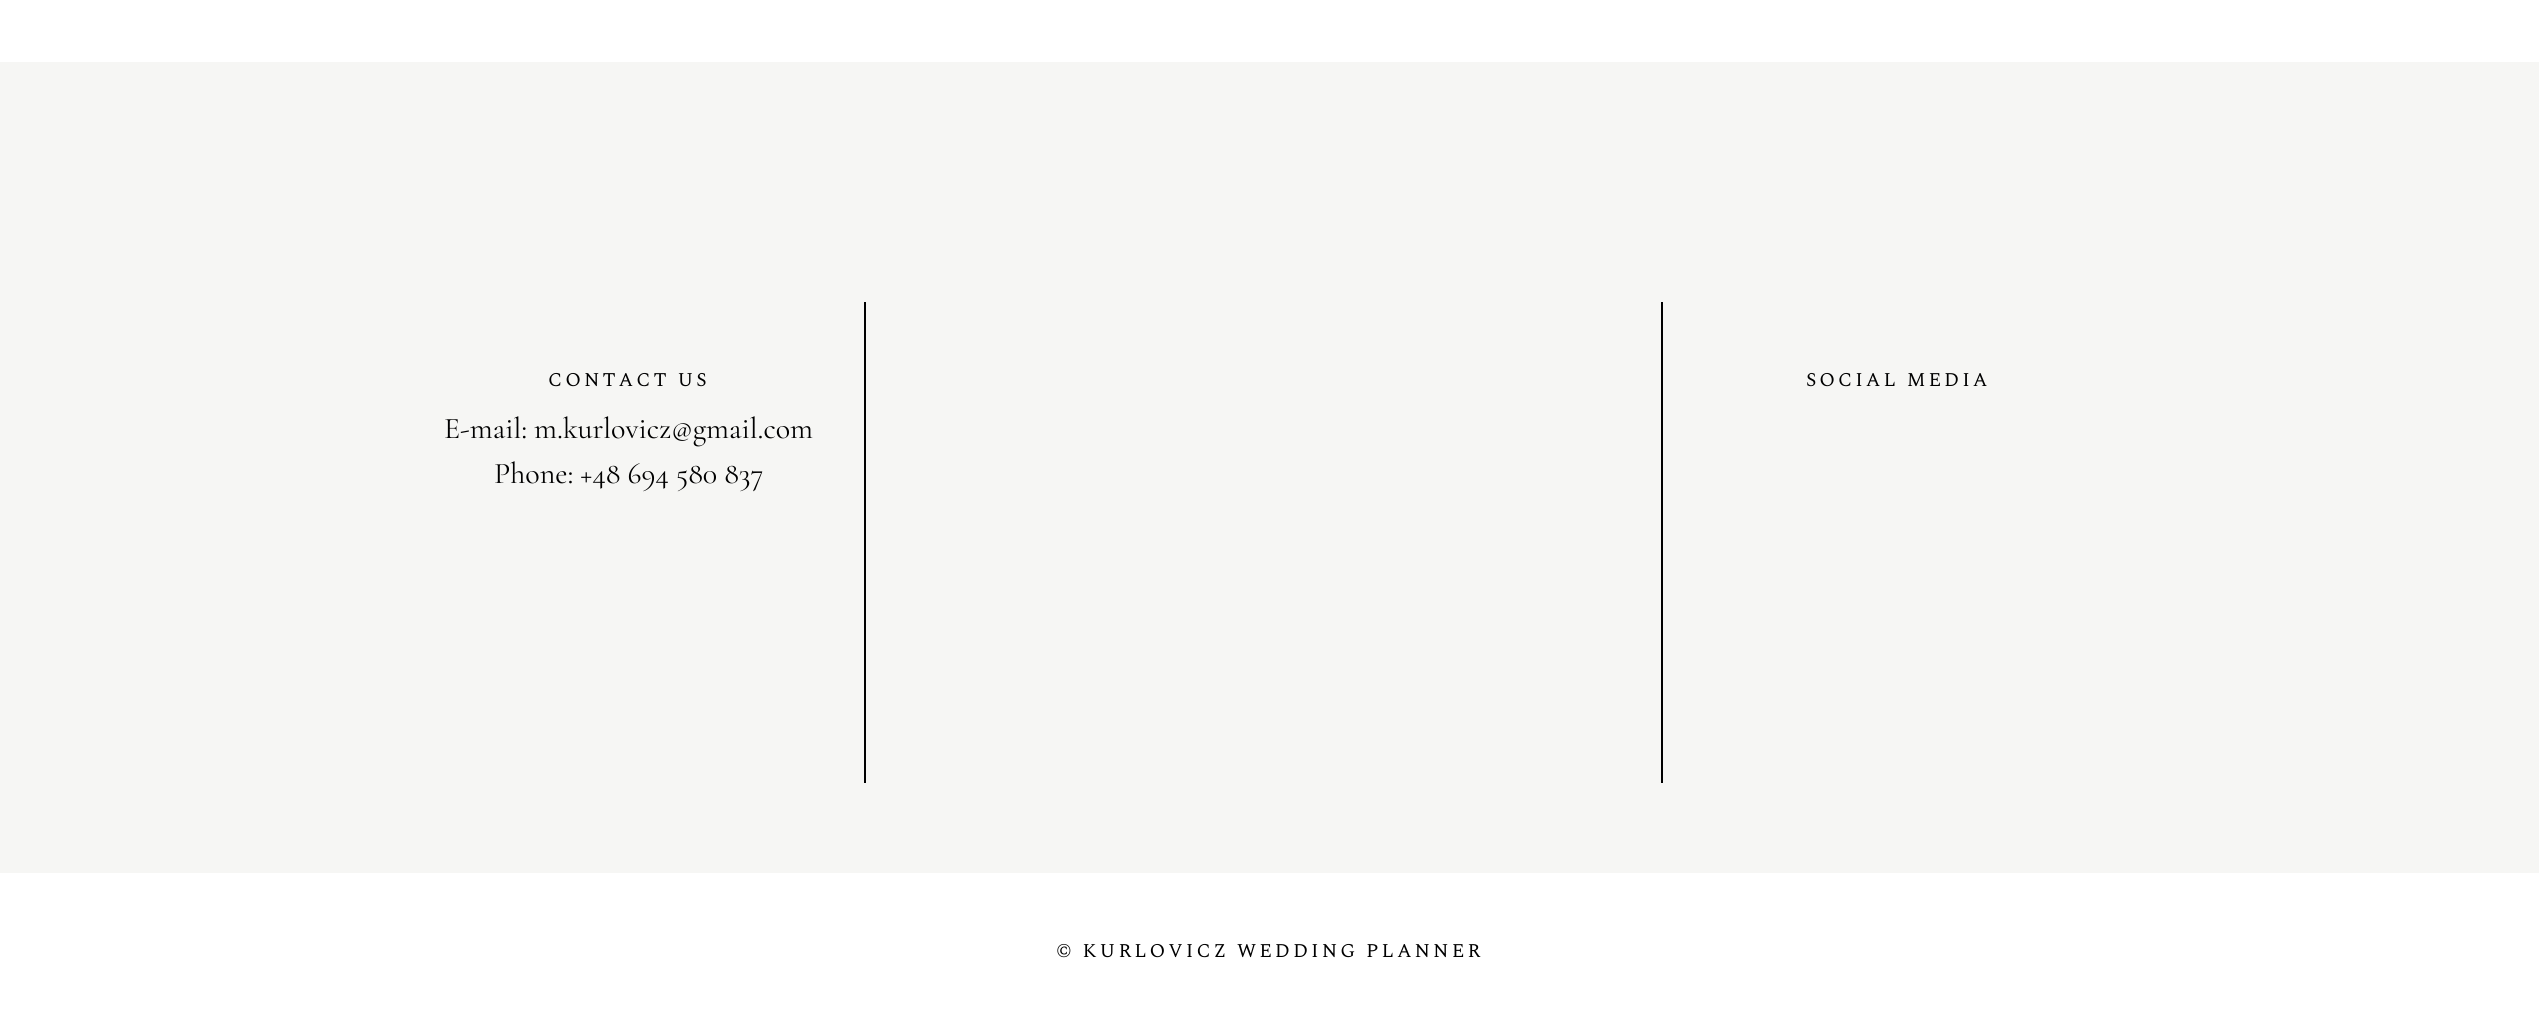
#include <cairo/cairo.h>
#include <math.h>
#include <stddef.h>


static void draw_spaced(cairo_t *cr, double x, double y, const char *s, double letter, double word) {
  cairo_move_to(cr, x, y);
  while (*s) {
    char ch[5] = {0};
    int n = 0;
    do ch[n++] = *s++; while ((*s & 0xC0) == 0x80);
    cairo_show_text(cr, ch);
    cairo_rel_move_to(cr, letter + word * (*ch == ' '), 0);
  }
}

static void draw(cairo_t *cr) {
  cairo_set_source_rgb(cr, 1, 1, 1);
  cairo_paint(cr);
  cairo_set_source_rgb(cr, 246 / 255.0, 246 / 255.0, 244 / 255.0);
  cairo_rectangle(cr, 0, 62, 2539, 811);
  cairo_fill(cr);
  cairo_set_source_rgb(cr, 0, 0, 0);
  cairo_rectangle(cr, 864, 302, 2, 481);
  cairo_fill(cr);
  cairo_rectangle(cr, 1661, 302, 2, 481);
  cairo_fill(cr);
  cairo_select_font_face(cr, "Spectral", CAIRO_FONT_SLANT_NORMAL, CAIRO_FONT_WEIGHT_NORMAL);
  cairo_set_font_size(cr, 19.5);
  draw_spaced(cr, 548, 386, "CONTACT US", 3, 0);
  cairo_select_font_face(cr, "Cormorant Garamond", CAIRO_FONT_SLANT_NORMAL, CAIRO_FONT_WEIGHT_NORMAL);
  cairo_set_font_size(cr, 30);
  cairo_move_to(cr, 444, 438);
  cairo_show_text(cr, "E-mail: m.kurlovicz@gmail.com");
  cairo_move_to(cr, 494, 483);
  cairo_show_text(cr, "Phone: +48 694 580 837");
  cairo_select_font_face(cr, "Spectral", CAIRO_FONT_SLANT_NORMAL, CAIRO_FONT_WEIGHT_NORMAL);
  cairo_set_font_size(cr, 19.5);
  draw_spaced(cr, 1806, 386, "SOCIAL MEDIA", 3, 0);
  draw_spaced(cr, 1056, 957, "© KURLOVICZ WEDDING PLANNER", 3, 0);
}

int main(void) {
  cairo_surface_t *surface = cairo_image_surface_create(CAIRO_FORMAT_RGB24, 2539, 1023);
  cairo_t *cr = cairo_create(surface);
  cairo_font_options_t *options = cairo_font_options_create();
  cairo_font_options_set_hint_metrics(options, CAIRO_HINT_METRICS_OFF);
  cairo_font_options_set_hint_style(options, CAIRO_HINT_STYLE_NONE);
  cairo_set_font_options(cr, options);
  cairo_set_miter_limit(cr, 4);
  draw(cr);
  cairo_surface_write_to_png(surface, "out.png");
  cairo_font_options_destroy(options);
  cairo_destroy(cr);
  cairo_surface_destroy(surface);
  return 0;
}
